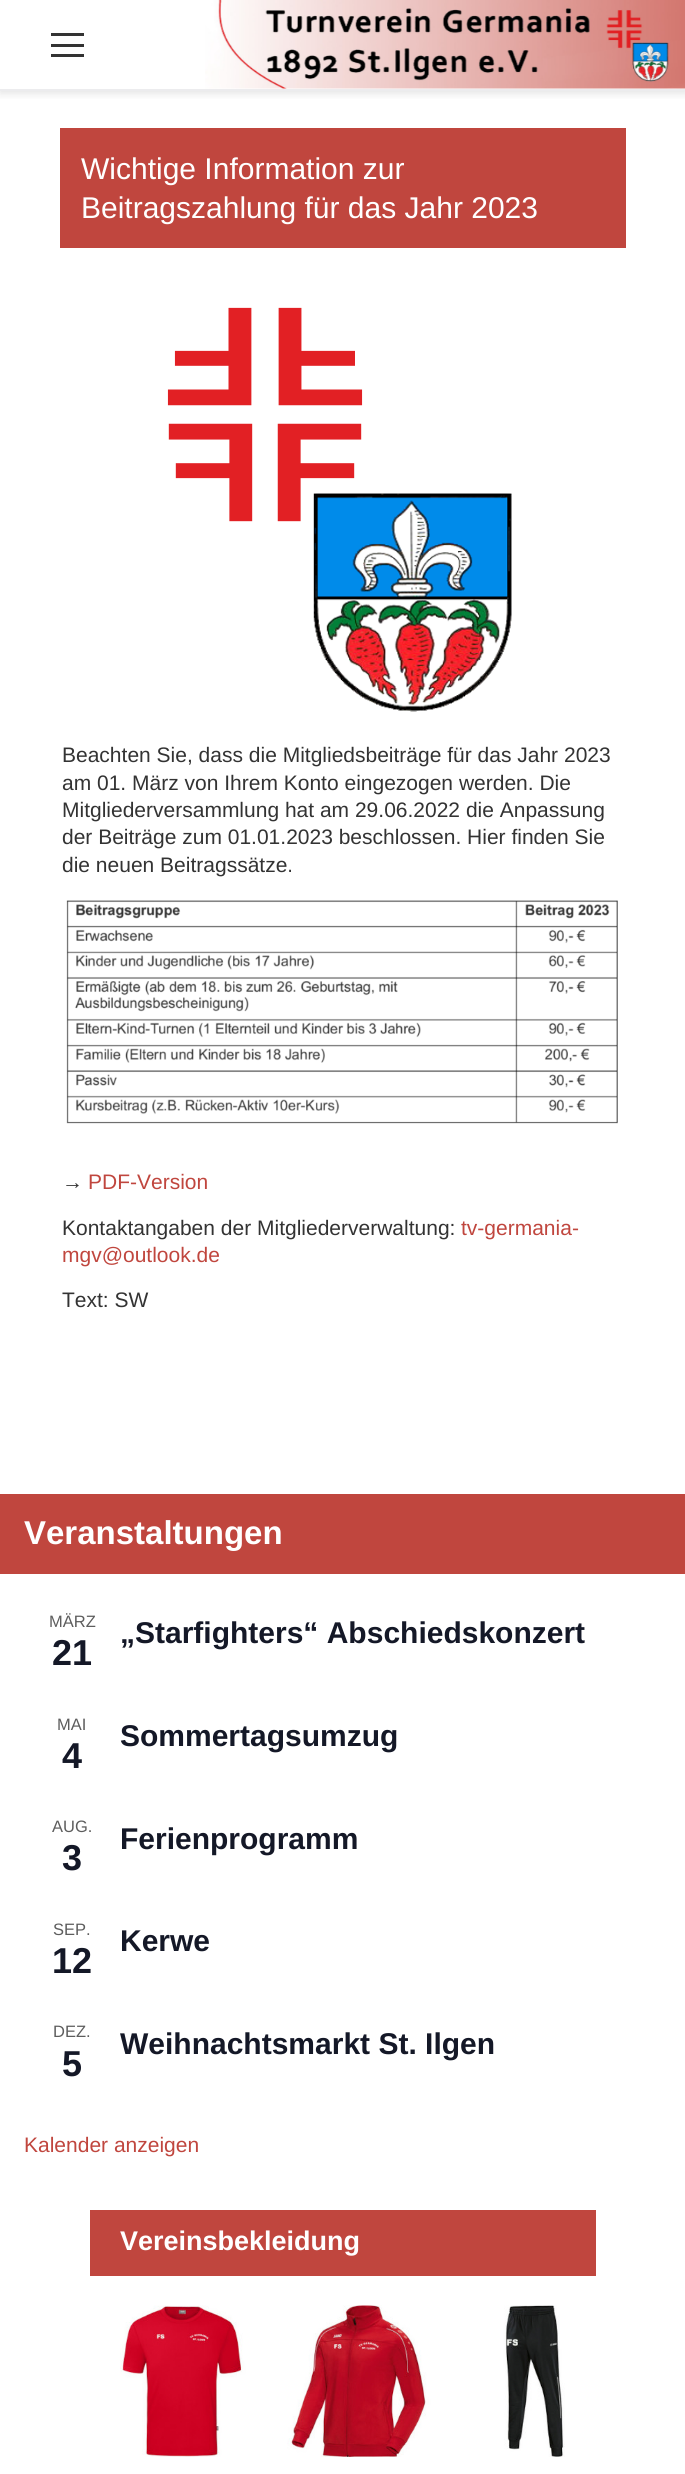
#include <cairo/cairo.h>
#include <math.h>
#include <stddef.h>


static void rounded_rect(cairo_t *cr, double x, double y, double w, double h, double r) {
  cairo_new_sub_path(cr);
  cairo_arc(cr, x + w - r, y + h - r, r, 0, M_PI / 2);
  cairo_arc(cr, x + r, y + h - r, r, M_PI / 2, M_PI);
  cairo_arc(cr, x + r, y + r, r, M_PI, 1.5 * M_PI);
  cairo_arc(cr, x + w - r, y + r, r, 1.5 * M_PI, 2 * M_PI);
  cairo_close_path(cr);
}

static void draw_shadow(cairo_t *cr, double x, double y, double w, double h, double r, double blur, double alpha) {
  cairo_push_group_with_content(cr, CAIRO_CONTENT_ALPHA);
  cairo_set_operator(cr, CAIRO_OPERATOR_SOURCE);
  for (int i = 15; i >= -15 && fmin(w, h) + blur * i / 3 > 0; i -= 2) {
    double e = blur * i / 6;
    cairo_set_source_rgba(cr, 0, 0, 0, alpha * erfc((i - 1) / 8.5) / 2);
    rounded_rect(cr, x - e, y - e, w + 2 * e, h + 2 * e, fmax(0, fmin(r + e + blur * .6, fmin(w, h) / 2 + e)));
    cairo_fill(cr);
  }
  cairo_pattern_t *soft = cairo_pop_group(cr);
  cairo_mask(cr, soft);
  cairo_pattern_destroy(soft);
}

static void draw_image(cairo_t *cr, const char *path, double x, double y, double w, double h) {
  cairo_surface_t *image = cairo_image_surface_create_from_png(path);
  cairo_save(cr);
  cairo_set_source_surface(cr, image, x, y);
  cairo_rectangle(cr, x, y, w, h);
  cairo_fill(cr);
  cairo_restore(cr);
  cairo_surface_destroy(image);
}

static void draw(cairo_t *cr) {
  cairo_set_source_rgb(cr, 1, 1, 1);
  cairo_paint(cr);
  cairo_save(cr);
  cairo_rectangle(cr, 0, 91, 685, 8);
  cairo_clip(cr);
  cairo_set_source_rgb(cr, 136 / 255.0, 136 / 255.0, 136 / 255.0);
  draw_shadow(cr, 0, 3, 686, 90, 0, 4.5, 0.26);
  cairo_restore(cr);
  draw_image(cr, "images/1.png", 205, 0, 480, 89);
  cairo_set_source_rgb(cr, 236 / 255.0, 236 / 255.0, 238 / 255.0);
  cairo_rectangle(cr, 0, 89, 685, 2);
  cairo_fill(cr);
  cairo_set_source_rgb(cr, 51 / 255.0, 51 / 255.0, 51 / 255.0);
  cairo_rectangle(cr, 51, 44, 33, 3);
  cairo_fill(cr);
  cairo_rectangle(cr, 51, 33, 33, 3);
  cairo_fill(cr);
  cairo_rectangle(cr, 51, 54, 33, 3);
  cairo_fill(cr);
  cairo_set_source_rgb(cr, 192 / 255.0, 70 / 255.0, 62 / 255.0);
  cairo_rectangle(cr, 60, 128, 566, 120);
  cairo_fill(cr);
  draw_image(cr, "images/2.png", 167, 307, 345, 405);
  draw_image(cr, "images/3.png", 66, 900, 552, 224);
  cairo_rectangle(cr, 0, 1494, 685, 80);
  cairo_fill(cr);
  cairo_rectangle(cr, 90, 2210, 506, 66);
  cairo_fill(cr);
  draw_image(cr, "images/4.png", 120, 2305, 445, 152);
  cairo_select_font_face(cr, "Liberation Sans", CAIRO_FONT_SLANT_NORMAL, CAIRO_FONT_WEIGHT_NORMAL);
  cairo_set_font_size(cr, 30);
  cairo_set_source_rgb(cr, 1, 1, 1);
  cairo_move_to(cr, 81, 179);
  cairo_show_text(cr, "Wichtige Information zur");
  cairo_move_to(cr, 81, 218);
  cairo_show_text(cr, "Beitragszahlung für das Jahr 2023");
  cairo_set_font_size(cr, 21);
  cairo_set_source_rgb(cr, 51 / 255.0, 51 / 255.0, 51 / 255.0);
  cairo_move_to(cr, 62, 762);
  cairo_show_text(cr, "Beachten Sie, dass die Mitgliedsbeiträge für das Jahr 2023");
  cairo_move_to(cr, 62, 790);
  cairo_show_text(cr, "am 01. März von Ihrem Konto eingezogen werden. Die");
  cairo_move_to(cr, 62, 817);
  cairo_show_text(cr, "Mitgliederversammlung hat am 29.06.2022 die Anpassung");
  cairo_move_to(cr, 62, 844);
  cairo_show_text(cr, "der Beiträge zum 01.01.2023 beschlossen. Hier finden Sie");
  cairo_move_to(cr, 62, 872);
  cairo_show_text(cr, "die neuen Beitragssätze.");
  cairo_move_to(cr, 62, 1189);
  cairo_show_text(cr, "→");
  cairo_set_source_rgb(cr, 192 / 255.0, 70 / 255.0, 62 / 255.0);
  cairo_move_to(cr, 88, 1189);
  cairo_show_text(cr, "PDF-Version");
  cairo_set_source_rgb(cr, 51 / 255.0, 51 / 255.0, 51 / 255.0);
  cairo_move_to(cr, 62, 1235);
  cairo_show_text(cr, "Kontaktangaben der Mitgliederverwaltung:");
  cairo_set_source_rgb(cr, 192 / 255.0, 70 / 255.0, 62 / 255.0);
  cairo_move_to(cr, 461, 1235);
  cairo_show_text(cr, "tv-germania-");
  cairo_move_to(cr, 62, 1262);
  cairo_show_text(cr, "mgv@outlook.de");
  cairo_set_source_rgb(cr, 51 / 255.0, 51 / 255.0, 51 / 255.0);
  cairo_move_to(cr, 62, 1307);
  cairo_show_text(cr, "Text: SW");
  cairo_select_font_face(cr, "Liberation Sans", CAIRO_FONT_SLANT_NORMAL, CAIRO_FONT_WEIGHT_BOLD);
  cairo_set_font_size(cr, 33);
  cairo_set_source_rgb(cr, 1, 1, 1);
  cairo_move_to(cr, 24, 1544);
  cairo_show_text(cr, "Veranstaltungen");
  cairo_select_font_face(cr, "Liberation Sans", CAIRO_FONT_SLANT_NORMAL, CAIRO_FONT_WEIGHT_NORMAL);
  cairo_set_font_size(cr, 16.5);
  cairo_set_source_rgb(cr, 93 / 255.0, 93 / 255.0, 93 / 255.0);
  cairo_move_to(cr, 49, 1627);
  cairo_show_text(cr, "MÄRZ");
  cairo_select_font_face(cr, "Liberation Sans", CAIRO_FONT_SLANT_NORMAL, CAIRO_FONT_WEIGHT_BOLD);
  cairo_set_font_size(cr, 36);
  cairo_set_source_rgb(cr, 20 / 255.0, 24 / 255.0, 39 / 255.0);
  cairo_move_to(cr, 52, 1665);
  cairo_show_text(cr, "21");
  cairo_set_font_size(cr, 30);
  cairo_move_to(cr, 120, 1643);
  cairo_show_text(cr, "„Starfighters“ Abschiedskonzert");
  cairo_select_font_face(cr, "Liberation Sans", CAIRO_FONT_SLANT_NORMAL, CAIRO_FONT_WEIGHT_NORMAL);
  cairo_set_font_size(cr, 16.5);
  cairo_set_source_rgb(cr, 93 / 255.0, 93 / 255.0, 93 / 255.0);
  cairo_move_to(cr, 57, 1730);
  cairo_show_text(cr, "MAI");
  cairo_select_font_face(cr, "Liberation Sans", CAIRO_FONT_SLANT_NORMAL, CAIRO_FONT_WEIGHT_BOLD);
  cairo_set_font_size(cr, 36);
  cairo_set_source_rgb(cr, 20 / 255.0, 24 / 255.0, 39 / 255.0);
  cairo_move_to(cr, 62, 1768);
  cairo_show_text(cr, "4");
  cairo_set_font_size(cr, 30);
  cairo_move_to(cr, 120, 1746);
  cairo_show_text(cr, "Sommertagsumzug");
  cairo_select_font_face(cr, "Liberation Sans", CAIRO_FONT_SLANT_NORMAL, CAIRO_FONT_WEIGHT_NORMAL);
  cairo_set_font_size(cr, 16.5);
  cairo_set_source_rgb(cr, 93 / 255.0, 93 / 255.0, 93 / 255.0);
  cairo_move_to(cr, 52, 1832);
  cairo_show_text(cr, "AUG.");
  cairo_select_font_face(cr, "Liberation Sans", CAIRO_FONT_SLANT_NORMAL, CAIRO_FONT_WEIGHT_BOLD);
  cairo_set_font_size(cr, 36);
  cairo_set_source_rgb(cr, 20 / 255.0, 24 / 255.0, 39 / 255.0);
  cairo_move_to(cr, 62, 1870);
  cairo_show_text(cr, "3");
  cairo_set_font_size(cr, 30);
  cairo_move_to(cr, 120, 1849);
  cairo_show_text(cr, "Ferienprogramm");
  cairo_select_font_face(cr, "Liberation Sans", CAIRO_FONT_SLANT_NORMAL, CAIRO_FONT_WEIGHT_NORMAL);
  cairo_set_font_size(cr, 16.5);
  cairo_set_source_rgb(cr, 93 / 255.0, 93 / 255.0, 93 / 255.0);
  cairo_move_to(cr, 53, 1935);
  cairo_show_text(cr, "SEP.");
  cairo_select_font_face(cr, "Liberation Sans", CAIRO_FONT_SLANT_NORMAL, CAIRO_FONT_WEIGHT_BOLD);
  cairo_set_font_size(cr, 36);
  cairo_set_source_rgb(cr, 20 / 255.0, 24 / 255.0, 39 / 255.0);
  cairo_move_to(cr, 52, 1973);
  cairo_show_text(cr, "12");
  cairo_set_font_size(cr, 30);
  cairo_move_to(cr, 120, 1951);
  cairo_show_text(cr, "Kerwe");
  cairo_select_font_face(cr, "Liberation Sans", CAIRO_FONT_SLANT_NORMAL, CAIRO_FONT_WEIGHT_NORMAL);
  cairo_set_font_size(cr, 16.5);
  cairo_set_source_rgb(cr, 93 / 255.0, 93 / 255.0, 93 / 255.0);
  cairo_move_to(cr, 53, 2037);
  cairo_show_text(cr, "DEZ.");
  cairo_select_font_face(cr, "Liberation Sans", CAIRO_FONT_SLANT_NORMAL, CAIRO_FONT_WEIGHT_BOLD);
  cairo_set_font_size(cr, 36);
  cairo_set_source_rgb(cr, 20 / 255.0, 24 / 255.0, 39 / 255.0);
  cairo_move_to(cr, 62, 2076);
  cairo_show_text(cr, "5");
  cairo_set_font_size(cr, 30);
  cairo_move_to(cr, 120, 2054);
  cairo_show_text(cr, "Weihnachtsmarkt St. Ilgen");
  cairo_select_font_face(cr, "Liberation Sans", CAIRO_FONT_SLANT_NORMAL, CAIRO_FONT_WEIGHT_NORMAL);
  cairo_set_font_size(cr, 21);
  cairo_set_source_rgb(cr, 192 / 255.0, 70 / 255.0, 62 / 255.0);
  cairo_move_to(cr, 24, 2152);
  cairo_show_text(cr, "Kalender anzeigen");
  cairo_select_font_face(cr, "Liberation Sans", CAIRO_FONT_SLANT_NORMAL, CAIRO_FONT_WEIGHT_BOLD);
  cairo_set_font_size(cr, 27);
  cairo_set_source_rgb(cr, 1, 1, 1);
  cairo_move_to(cr, 120, 2250);
  cairo_show_text(cr, "Vereinsbekleidung");
}

int main(void) {
  cairo_surface_t *surface = cairo_image_surface_create(CAIRO_FORMAT_RGB24, 685, 2474);
  cairo_t *cr = cairo_create(surface);
  cairo_font_options_t *options = cairo_font_options_create();
  cairo_font_options_set_hint_metrics(options, CAIRO_HINT_METRICS_OFF);
  cairo_font_options_set_hint_style(options, CAIRO_HINT_STYLE_NONE);
  cairo_set_font_options(cr, options);
  cairo_set_miter_limit(cr, 4);
  draw(cr);
  cairo_surface_write_to_png(surface, "out.png");
  cairo_font_options_destroy(options);
  cairo_destroy(cr);
  cairo_surface_destroy(surface);
  return 0;
}
